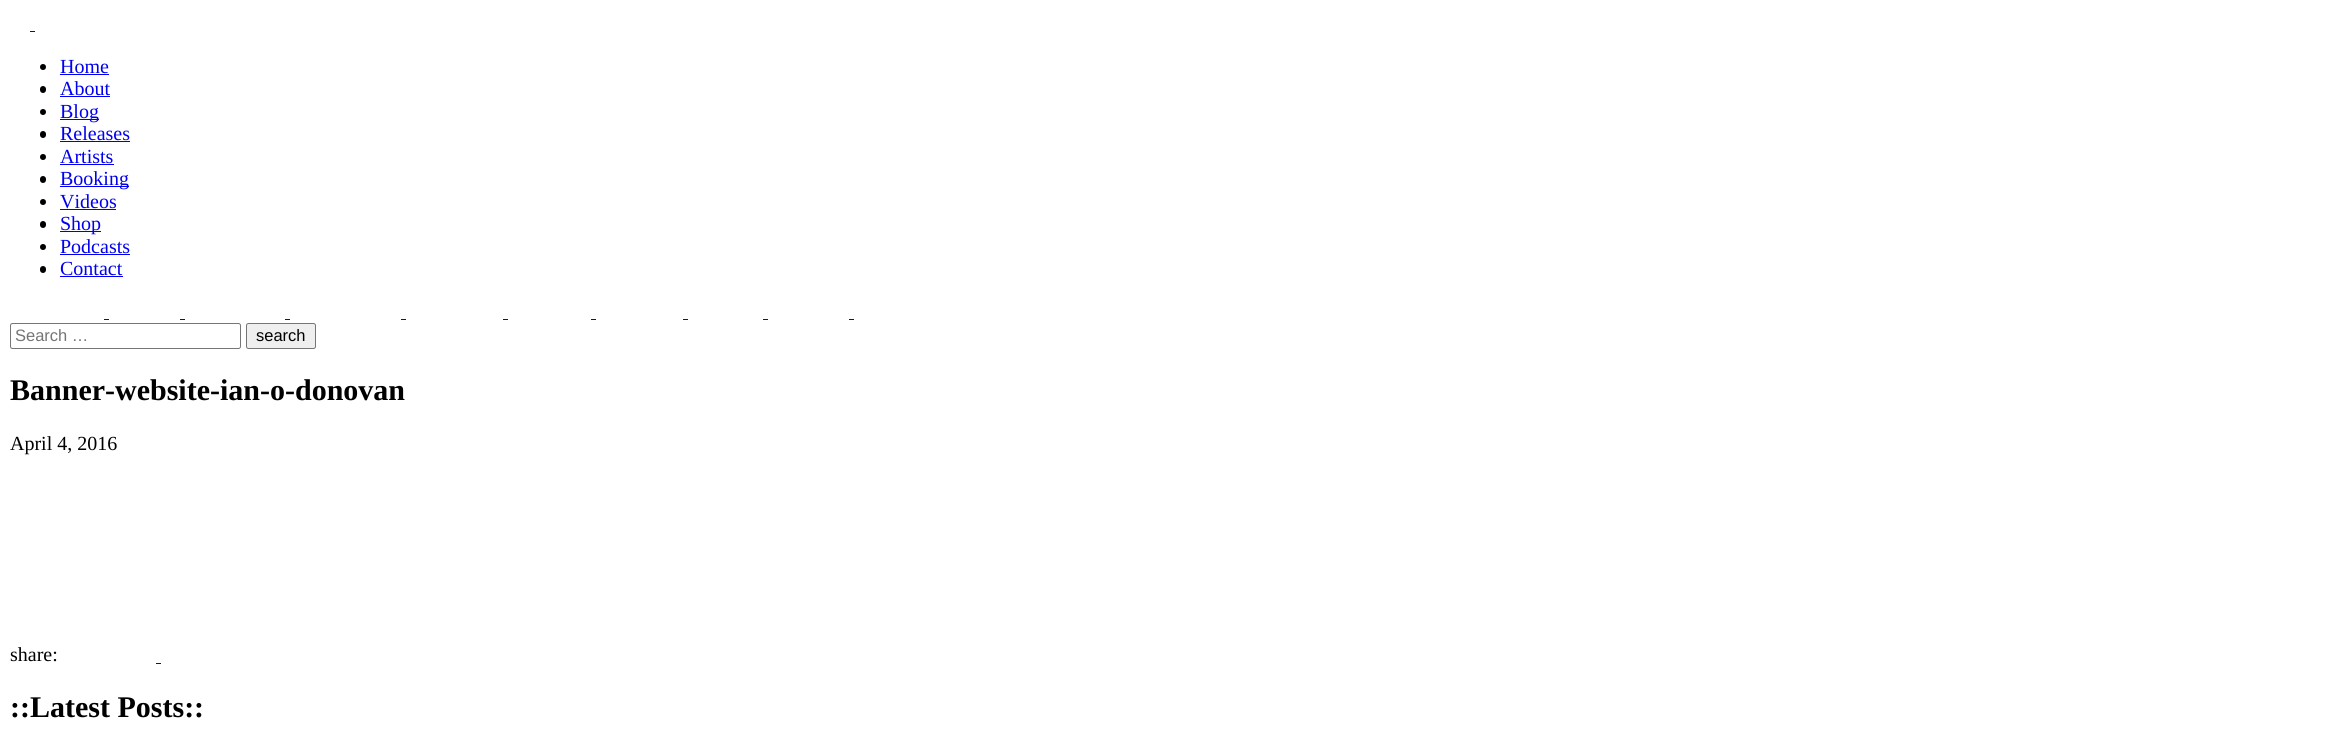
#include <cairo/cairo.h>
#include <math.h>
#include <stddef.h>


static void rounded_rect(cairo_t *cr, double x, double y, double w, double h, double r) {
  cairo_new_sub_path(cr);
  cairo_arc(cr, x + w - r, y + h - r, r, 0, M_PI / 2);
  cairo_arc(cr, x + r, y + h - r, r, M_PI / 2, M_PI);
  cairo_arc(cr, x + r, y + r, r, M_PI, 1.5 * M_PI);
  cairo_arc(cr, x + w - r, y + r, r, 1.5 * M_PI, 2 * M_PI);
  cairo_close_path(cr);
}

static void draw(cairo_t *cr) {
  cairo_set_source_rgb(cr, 1, 1, 1);
  cairo_paint(cr);
  cairo_set_source_rgb(cr, 0, 0, 238 / 255.0);
  cairo_rectangle(cr, 30, 31, 5, 1);
  cairo_fill(cr);
  cairo_set_source_rgb(cr, 0, 0, 0);
  cairo_arc(cr, 43, 67, 3, 0, 2 * M_PI);
  cairo_fill(cr);
  cairo_set_source_rgb(cr, 0, 0, 238 / 255.0);
  cairo_rectangle(cr, 60, 74, 49, 1);
  cairo_fill(cr);
  cairo_set_source_rgb(cr, 0, 0, 0);
  rounded_rect(cr, 40, 86, 6, 7, 3);
  cairo_fill(cr);
  cairo_set_source_rgb(cr, 0, 0, 238 / 255.0);
  cairo_rectangle(cr, 60, 96, 50, 1);
  cairo_fill(cr);
  cairo_set_source_rgb(cr, 0, 0, 0);
  cairo_arc(cr, 43, 112, 3, 0, 2 * M_PI);
  cairo_fill(cr);
  cairo_set_source_rgb(cr, 0, 0, 238 / 255.0);
  cairo_rectangle(cr, 60, 119, 39, 1);
  cairo_fill(cr);
  cairo_set_source_rgb(cr, 0, 0, 0);
  rounded_rect(cr, 40, 131, 6, 7, 3);
  cairo_fill(cr);
  cairo_set_source_rgb(cr, 0, 0, 238 / 255.0);
  cairo_rectangle(cr, 60, 141, 70, 1);
  cairo_fill(cr);
  cairo_set_source_rgb(cr, 0, 0, 0);
  cairo_arc(cr, 43, 157, 3, 0, 2 * M_PI);
  cairo_fill(cr);
  cairo_set_source_rgb(cr, 0, 0, 238 / 255.0);
  cairo_rectangle(cr, 60, 164, 54, 1);
  cairo_fill(cr);
  cairo_set_source_rgb(cr, 0, 0, 0);
  rounded_rect(cr, 40, 176, 6, 7, 3);
  cairo_fill(cr);
  cairo_set_source_rgb(cr, 0, 0, 238 / 255.0);
  cairo_rectangle(cr, 60, 186, 69, 1);
  cairo_fill(cr);
  cairo_set_source_rgb(cr, 0, 0, 0);
  cairo_arc(cr, 43, 202, 3, 0, 2 * M_PI);
  cairo_fill(cr);
  cairo_set_source_rgb(cr, 0, 0, 238 / 255.0);
  cairo_rectangle(cr, 60, 209, 56, 1);
  cairo_fill(cr);
  cairo_set_source_rgb(cr, 0, 0, 0);
  rounded_rect(cr, 40, 221, 6, 7, 3);
  cairo_fill(cr);
  cairo_set_source_rgb(cr, 0, 0, 238 / 255.0);
  cairo_rectangle(cr, 60, 231, 41, 1);
  cairo_fill(cr);
  cairo_set_source_rgb(cr, 0, 0, 0);
  cairo_arc(cr, 43, 247, 3, 0, 2 * M_PI);
  cairo_fill(cr);
  cairo_set_source_rgb(cr, 0, 0, 238 / 255.0);
  cairo_rectangle(cr, 60, 254, 70, 1);
  cairo_fill(cr);
  cairo_set_source_rgb(cr, 0, 0, 0);
  rounded_rect(cr, 40, 266, 6, 7, 3);
  cairo_fill(cr);
  cairo_set_source_rgb(cr, 0, 0, 238 / 255.0);
  cairo_rectangle(cr, 60, 276, 63, 1);
  cairo_fill(cr);
  cairo_rectangle(cr, 104, 319, 5, 1);
  cairo_fill(cr);
  cairo_rectangle(cr, 180, 319, 5, 1);
  cairo_fill(cr);
  cairo_rectangle(cr, 285, 319, 5, 1);
  cairo_fill(cr);
  cairo_rectangle(cr, 401, 319, 5, 1);
  cairo_fill(cr);
  cairo_rectangle(cr, 503, 319, 5, 1);
  cairo_fill(cr);
  cairo_rectangle(cr, 591, 319, 5, 1);
  cairo_fill(cr);
  cairo_rectangle(cr, 683, 319, 5, 1);
  cairo_fill(cr);
  cairo_rectangle(cr, 763, 319, 5, 1);
  cairo_fill(cr);
  cairo_rectangle(cr, 849, 319, 5, 1);
  cairo_fill(cr);
  rounded_rect(cr, 10.5, 323.5, 230, 25, 2);
  cairo_set_source_rgb(cr, 118 / 255.0, 118 / 255.0, 118 / 255.0);
  cairo_set_line_width(cr, 1);
  cairo_stroke(cr);
  cairo_set_source_rgb(cr, 239 / 255.0, 239 / 255.0, 239 / 255.0);
  rounded_rect(cr, 246.5, 323.5, 69, 25, 2);
  cairo_fill_preserve(cr);
  cairo_set_source_rgb(cr, 118 / 255.0, 118 / 255.0, 118 / 255.0);
  cairo_stroke(cr);
  cairo_set_source_rgb(cr, 0, 0, 238 / 255.0);
  cairo_rectangle(cr, 156, 663, 5, 1);
  cairo_fill(cr);
  cairo_select_font_face(cr, "Liberation Serif", CAIRO_FONT_SLANT_NORMAL, CAIRO_FONT_WEIGHT_NORMAL);
  cairo_set_font_size(cr, 20);
  cairo_move_to(cr, 60, 73);
  cairo_show_text(cr, "Home");
  cairo_move_to(cr, 60, 95);
  cairo_show_text(cr, "About");
  cairo_move_to(cr, 60, 118);
  cairo_show_text(cr, "Blog");
  cairo_move_to(cr, 60, 140);
  cairo_show_text(cr, "Releases");
  cairo_move_to(cr, 60, 163);
  cairo_show_text(cr, "Artists");
  cairo_move_to(cr, 60, 185);
  cairo_show_text(cr, "Booking");
  cairo_move_to(cr, 60, 208);
  cairo_show_text(cr, "Videos");
  cairo_move_to(cr, 60, 230);
  cairo_show_text(cr, "Shop");
  cairo_move_to(cr, 60, 253);
  cairo_show_text(cr, "Podcasts");
  cairo_move_to(cr, 60, 275);
  cairo_show_text(cr, "Contact");
  cairo_select_font_face(cr, "Liberation Sans", CAIRO_FONT_SLANT_NORMAL, CAIRO_FONT_WEIGHT_NORMAL);
  cairo_set_font_size(cr, 16.5);
  cairo_set_source_rgb(cr, 117 / 255.0, 117 / 255.0, 117 / 255.0);
  cairo_move_to(cr, 15, 341);
  cairo_show_text(cr, "Search …");
  cairo_set_source_rgb(cr, 0, 0, 0);
  cairo_move_to(cr, 256, 341);
  cairo_show_text(cr, "search");
  cairo_select_font_face(cr, "Liberation Serif", CAIRO_FONT_SLANT_NORMAL, CAIRO_FONT_WEIGHT_BOLD);
  cairo_set_font_size(cr, 30);
  cairo_move_to(cr, 10, 400);
  cairo_show_text(cr, "Banner-website-ian-o-donovan");
  cairo_select_font_face(cr, "Liberation Serif", CAIRO_FONT_SLANT_NORMAL, CAIRO_FONT_WEIGHT_NORMAL);
  cairo_set_font_size(cr, 20);
  cairo_move_to(cr, 10, 450);
  cairo_show_text(cr, "April 4, 2016");
  cairo_move_to(cr, 10, 661);
  cairo_show_text(cr, "share:");
  cairo_select_font_face(cr, "Liberation Serif", CAIRO_FONT_SLANT_NORMAL, CAIRO_FONT_WEIGHT_BOLD);
  cairo_set_font_size(cr, 30);
  cairo_move_to(cr, 10, 717);
  cairo_show_text(cr, "::Latest Posts::");
}

int main(void) {
  cairo_surface_t *surface = cairo_image_surface_create(CAIRO_FORMAT_RGB24, 2345, 733);
  cairo_t *cr = cairo_create(surface);
  cairo_font_options_t *options = cairo_font_options_create();
  cairo_font_options_set_hint_metrics(options, CAIRO_HINT_METRICS_OFF);
  cairo_font_options_set_hint_style(options, CAIRO_HINT_STYLE_NONE);
  cairo_set_font_options(cr, options);
  cairo_set_miter_limit(cr, 4);
  draw(cr);
  cairo_surface_write_to_png(surface, "out.png");
  cairo_font_options_destroy(options);
  cairo_destroy(cr);
  cairo_surface_destroy(surface);
  return 0;
}
